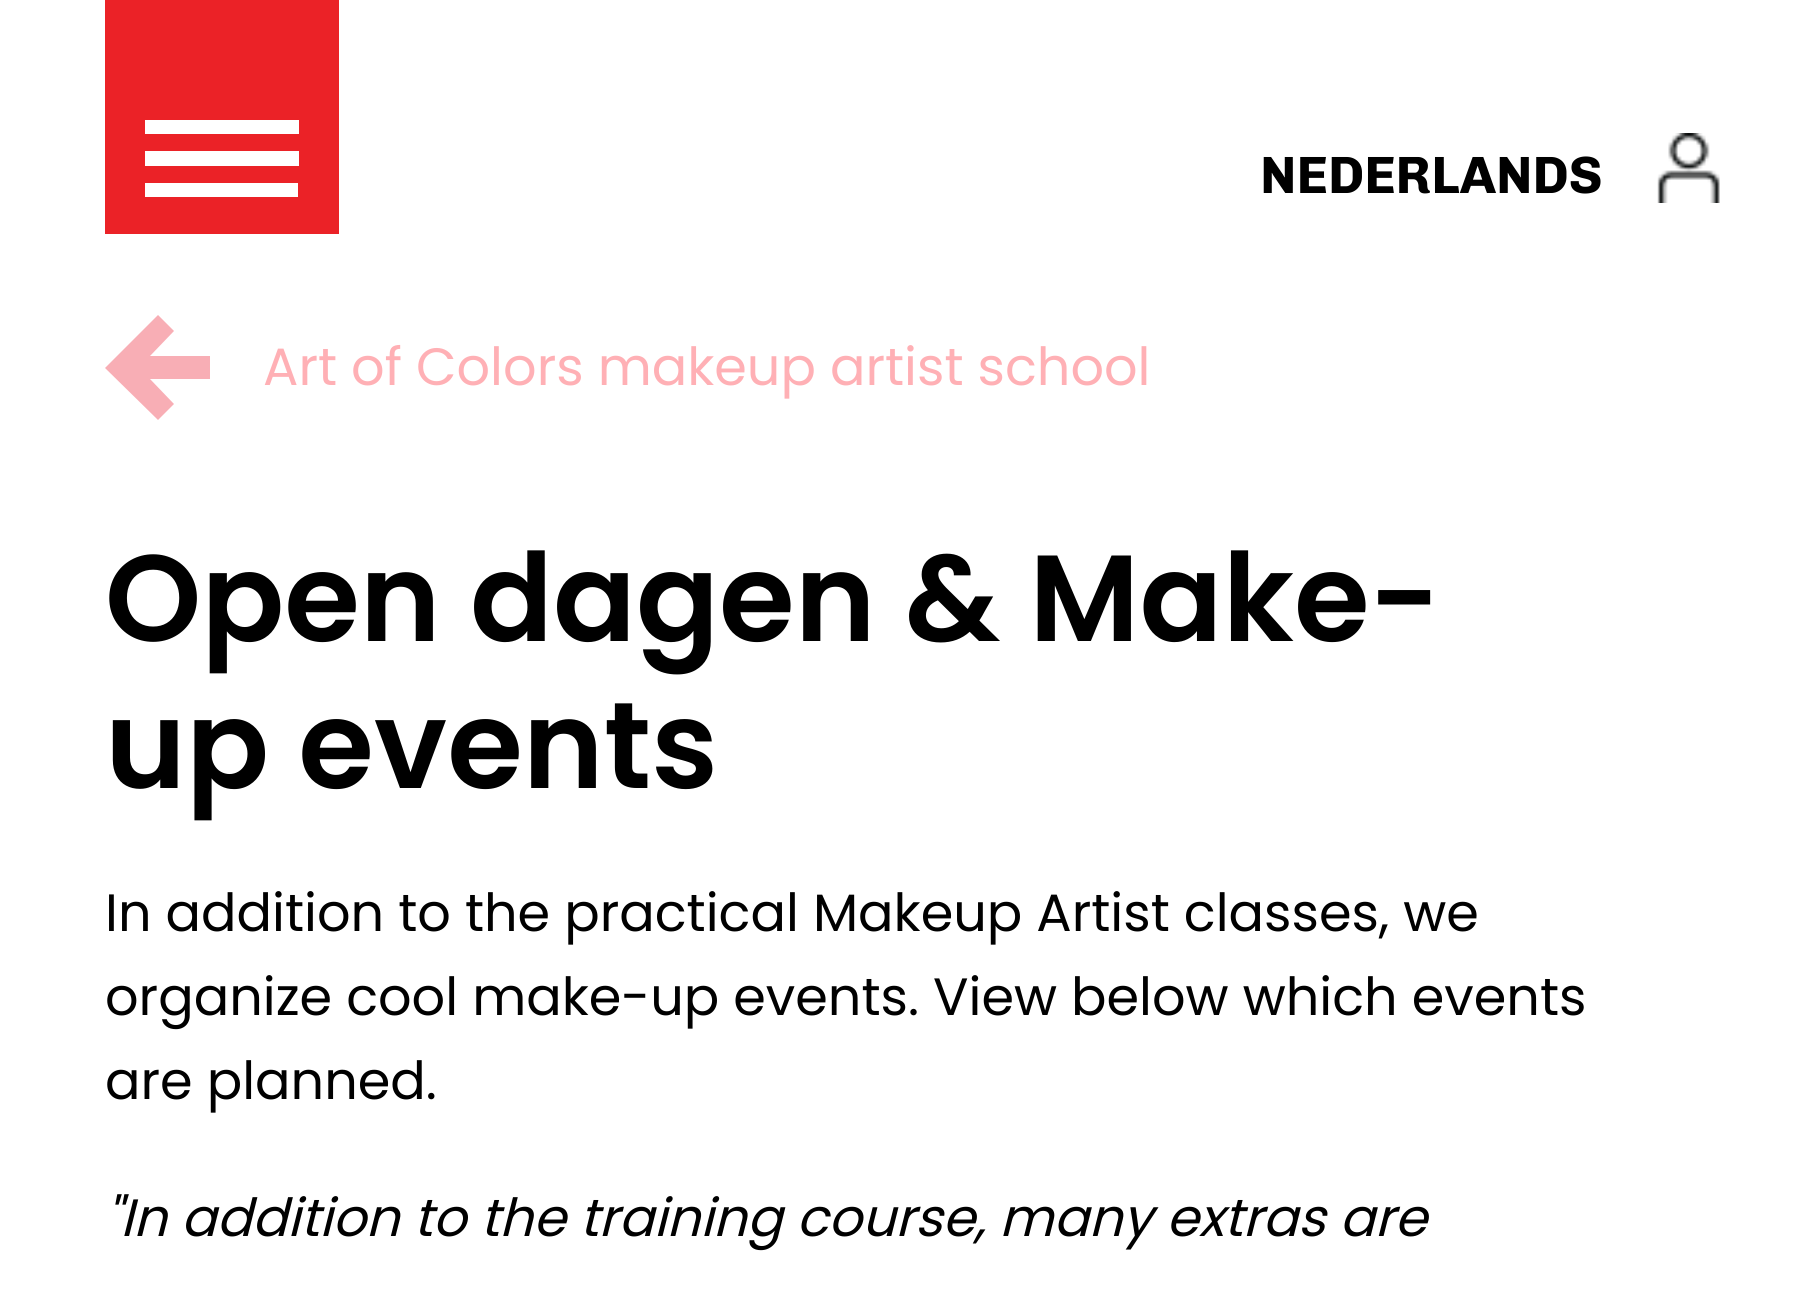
#include <cairo/cairo.h>
#include <math.h>
#include <stddef.h>


static void draw_image(cairo_t *cr, const char *path, double x, double y, double w, double h) {
  cairo_surface_t *image = cairo_image_surface_create_from_png(path);
  cairo_save(cr);
  cairo_set_source_surface(cr, image, x, y);
  cairo_rectangle(cr, x, y, w, h);
  cairo_fill(cr);
  cairo_restore(cr);
  cairo_surface_destroy(image);
}

static void draw(cairo_t *cr) {
  cairo_set_source_rgb(cr, 1, 1, 1);
  cairo_paint(cr);
  cairo_set_source_rgb(cr, 235 / 255.0, 34 / 255.0, 39 / 255.0);
  cairo_rectangle(cr, 105, 0, 234, 234);
  cairo_fill(cr);
  cairo_set_source_rgb(cr, 1, 1, 1);
  cairo_rectangle(cr, 145, 151, 154, 15);
  cairo_fill(cr);
  cairo_rectangle(cr, 145, 120, 154, 14);
  cairo_fill(cr);
  cairo_rectangle(cr, 145, 183, 153, 14);
  cairo_fill(cr);
  draw_image(cr, "images/1.png", 1657, 133, 63, 70);
  cairo_set_source_rgb(cr, 248 / 255.0, 174 / 255.0, 181 / 255.0);
  cairo_new_path(cr);
  cairo_move_to(cr, 210, 356);
  cairo_line_to(cr, 150, 356);
  cairo_line_to(cr, 174, 331);
  cairo_line_to(cr, 158, 315);
  cairo_line_to(cr, 105, 368);
  cairo_line_to(cr, 158, 420);
  cairo_line_to(cr, 174, 404);
  cairo_line_to(cr, 150, 379);
  cairo_line_to(cr, 210, 379);
  cairo_close_path(cr);
  cairo_fill(cr);
  cairo_select_font_face(cr, "Chivo Medium", CAIRO_FONT_SLANT_NORMAL, CAIRO_FONT_WEIGHT_NORMAL);
  cairo_set_font_size(cr, 52.5);
  cairo_set_source_rgb(cr, 0, 0, 0);
  cairo_move_to(cr, 1260, 193);
  cairo_show_text(cr, "NEDERLANDS");
  cairo_select_font_face(cr, "Poppins", CAIRO_FONT_SLANT_NORMAL, CAIRO_FONT_WEIGHT_NORMAL);
  cairo_set_source_rgb(cr, 1, 176 / 255.0, 181 / 255.0);
  cairo_move_to(cr, 263, 385);
  cairo_show_text(cr, "Art of Colors makeup artist school");
  cairo_select_font_face(cr, "Poppins SemiBold", CAIRO_FONT_SLANT_NORMAL, CAIRO_FONT_WEIGHT_NORMAL);
  cairo_set_font_size(cr, 122.5);
  cairo_set_source_rgb(cr, 0, 0, 0);
  cairo_move_to(cr, 105, 641);
  cairo_show_text(cr, "Open dagen & Make-");
  cairo_move_to(cr, 105, 788);
  cairo_show_text(cr, "up events");
  cairo_select_font_face(cr, "Poppins", CAIRO_FONT_SLANT_NORMAL, CAIRO_FONT_WEIGHT_NORMAL);
  cairo_set_font_size(cr, 52.5);
  cairo_move_to(cr, 105, 931);
  cairo_show_text(cr, "In addition to the practical Makeup Artist classes, we");
  cairo_move_to(cr, 105, 1015);
  cairo_show_text(cr, "organize cool make-up events. View below which events");
  cairo_move_to(cr, 105, 1099);
  cairo_show_text(cr, "are planned.");
  cairo_select_font_face(cr, "Poppins", CAIRO_FONT_SLANT_ITALIC, CAIRO_FONT_WEIGHT_NORMAL);
  cairo_move_to(cr, 105, 1236);
  cairo_show_text(cr, "\"In addition to the training course, many extras are");
}

int main(void) {
  cairo_surface_t *surface = cairo_image_surface_create(CAIRO_FORMAT_RGB24, 1796, 1296);
  cairo_t *cr = cairo_create(surface);
  cairo_font_options_t *options = cairo_font_options_create();
  cairo_font_options_set_hint_metrics(options, CAIRO_HINT_METRICS_OFF);
  cairo_font_options_set_hint_style(options, CAIRO_HINT_STYLE_NONE);
  cairo_set_font_options(cr, options);
  cairo_set_miter_limit(cr, 4);
  draw(cr);
  cairo_surface_write_to_png(surface, "out.png");
  cairo_font_options_destroy(options);
  cairo_destroy(cr);
  cairo_surface_destroy(surface);
  return 0;
}
